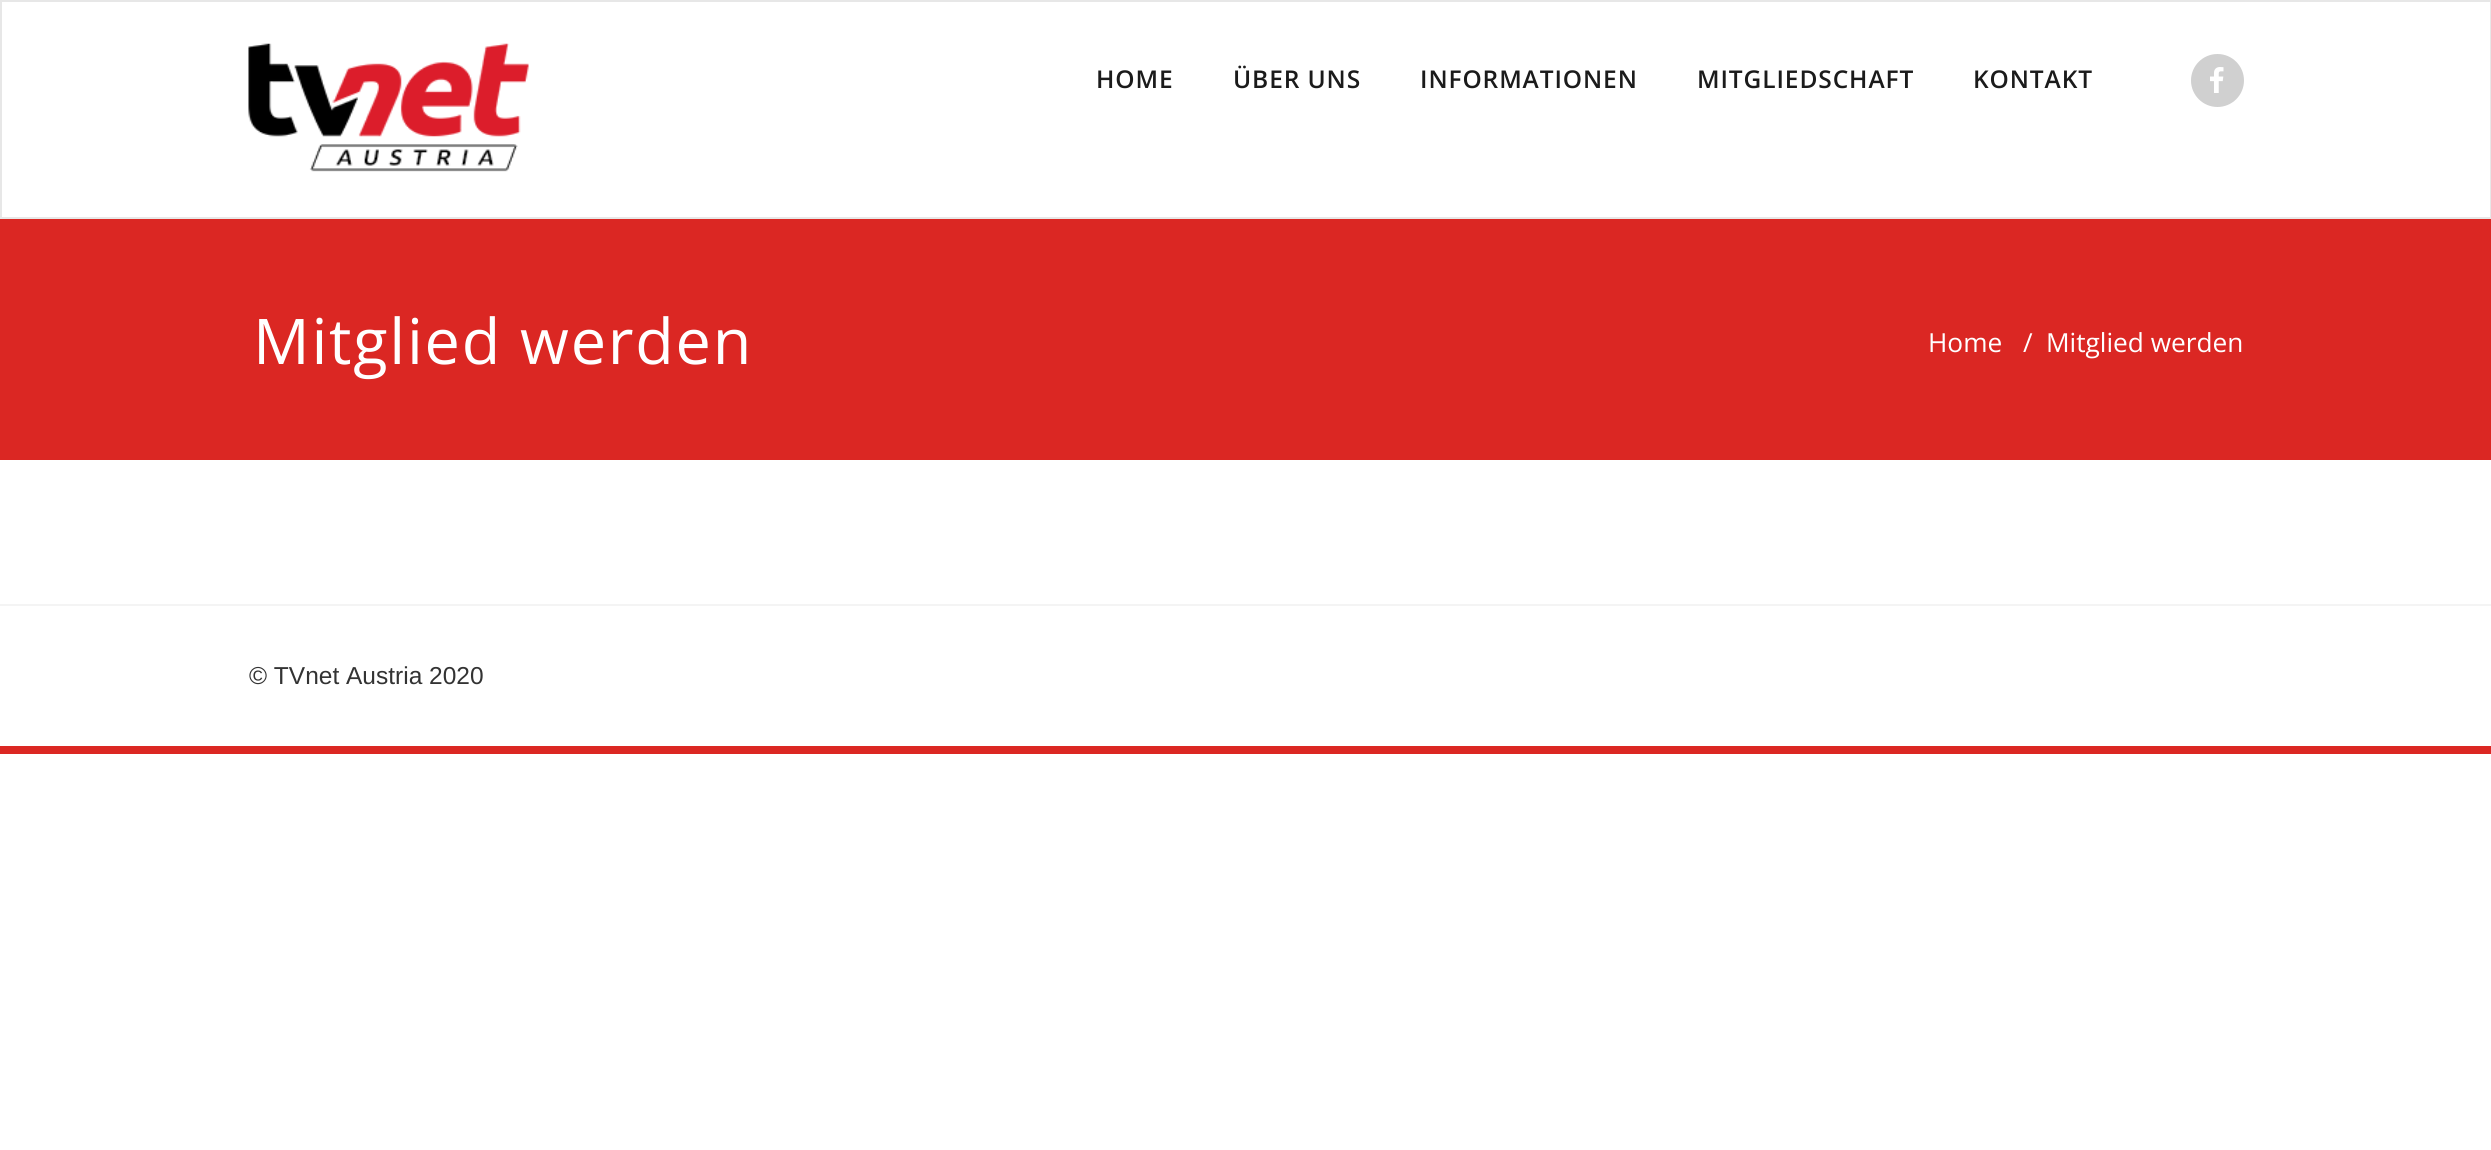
#include <cairo/cairo.h>
#include <math.h>
#include <stddef.h>


static void draw_spaced(cairo_t *cr, double x, double y, const char *s, double letter, double word) {
  cairo_move_to(cr, x, y);
  while (*s) {
    char ch[5] = {0};
    int n = 0;
    do ch[n++] = *s++; while ((*s & 0xC0) == 0x80);
    cairo_show_text(cr, ch);
    cairo_rel_move_to(cr, letter + word * (*ch == ' '), 0);
  }
}

static void draw_image(cairo_t *cr, const char *path, double x, double y, double w, double h) {
  cairo_surface_t *image = cairo_image_surface_create_from_png(path);
  cairo_save(cr);
  cairo_set_source_surface(cr, image, x, y);
  cairo_rectangle(cr, x, y, w, h);
  cairo_fill(cr);
  cairo_restore(cr);
  cairo_surface_destroy(image);
}

static void draw(cairo_t *cr) {
  cairo_set_source_rgb(cr, 1, 1, 1);
  cairo_paint(cr);
  cairo_rectangle(cr, 1, 1, 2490, 217);
  cairo_set_source_rgb(cr, 231 / 255.0, 231 / 255.0, 231 / 255.0);
  cairo_stroke(cr);
  draw_image(cr, "images/1.png", 248, 43, 281, 129);
  cairo_set_source_rgb(cr, 208 / 255.0, 208 / 255.0, 208 / 255.0);
  cairo_arc(cr, 2217.5, 80.5, 26.5, 0, 2 * M_PI);
  cairo_fill(cr);
  draw_image(cr, "images/2.png", 2210, 67, 14, 26);
  cairo_set_source_rgb(cr, 219 / 255.0, 39 / 255.0, 35 / 255.0);
  cairo_rectangle(cr, 0, 219, 2491, 241);
  cairo_fill(cr);
  cairo_set_source_rgb(cr, 244 / 255.0, 244 / 255.0, 244 / 255.0);
  cairo_rectangle(cr, 0, 604, 2491, 2);
  cairo_fill(cr);
  cairo_set_source_rgb(cr, 219 / 255.0, 39 / 255.0, 35 / 255.0);
  cairo_rectangle(cr, 0, 746, 2491, 8);
  cairo_fill(cr);
  cairo_select_font_face(cr, "Open Sans SemiBold", CAIRO_FONT_SLANT_NORMAL, CAIRO_FONT_WEIGHT_NORMAL);
  cairo_set_font_size(cr, 24.5);
  cairo_set_source_rgb(cr, 27 / 255.0, 27 / 255.0, 27 / 255.0);
  draw_spaced(cr, 1096, 88, "HOME", 0.9, 0);
  draw_spaced(cr, 1233, 88, "ÜBER UNS", 0.9, 0);
  draw_spaced(cr, 1420, 88, "INFORMATIONEN", 0.9, 0);
  draw_spaced(cr, 1697, 88, "MITGLIEDSCHAFT", 0.9, 0);
  draw_spaced(cr, 1973, 88, "KONTAKT", 0.9, 0);
  cairo_select_font_face(cr, "Open Sans", CAIRO_FONT_SLANT_NORMAL, CAIRO_FONT_WEIGHT_NORMAL);
  cairo_set_font_size(cr, 63);
  cairo_set_source_rgb(cr, 1, 1, 1);
  draw_spaced(cr, 253, 364, "Mitglied werden", 1.75, 0);
  cairo_set_font_size(cr, 26.25);
  cairo_move_to(cr, 1928, 352);
  cairo_show_text(cr, "Home");
  cairo_move_to(cr, 2023, 352);
  cairo_show_text(cr, "/");
  cairo_move_to(cr, 2046, 352);
  cairo_show_text(cr, "Mitglied werden");
  cairo_select_font_face(cr, "Liberation Sans", CAIRO_FONT_SLANT_NORMAL, CAIRO_FONT_WEIGHT_NORMAL);
  cairo_set_font_size(cr, 24.5);
  cairo_set_source_rgb(cr, 51 / 255.0, 51 / 255.0, 51 / 255.0);
  cairo_move_to(cr, 249, 684);
  cairo_show_text(cr, "© TVnet Austria 2020");
}

int main(void) {
  cairo_surface_t *surface = cairo_image_surface_create(CAIRO_FORMAT_RGB24, 2491, 1150);
  cairo_t *cr = cairo_create(surface);
  cairo_font_options_t *options = cairo_font_options_create();
  cairo_font_options_set_hint_metrics(options, CAIRO_HINT_METRICS_OFF);
  cairo_font_options_set_hint_style(options, CAIRO_HINT_STYLE_NONE);
  cairo_set_font_options(cr, options);
  cairo_set_miter_limit(cr, 4);
  draw(cr);
  cairo_surface_write_to_png(surface, "out.png");
  cairo_font_options_destroy(options);
  cairo_destroy(cr);
  cairo_surface_destroy(surface);
  return 0;
}
